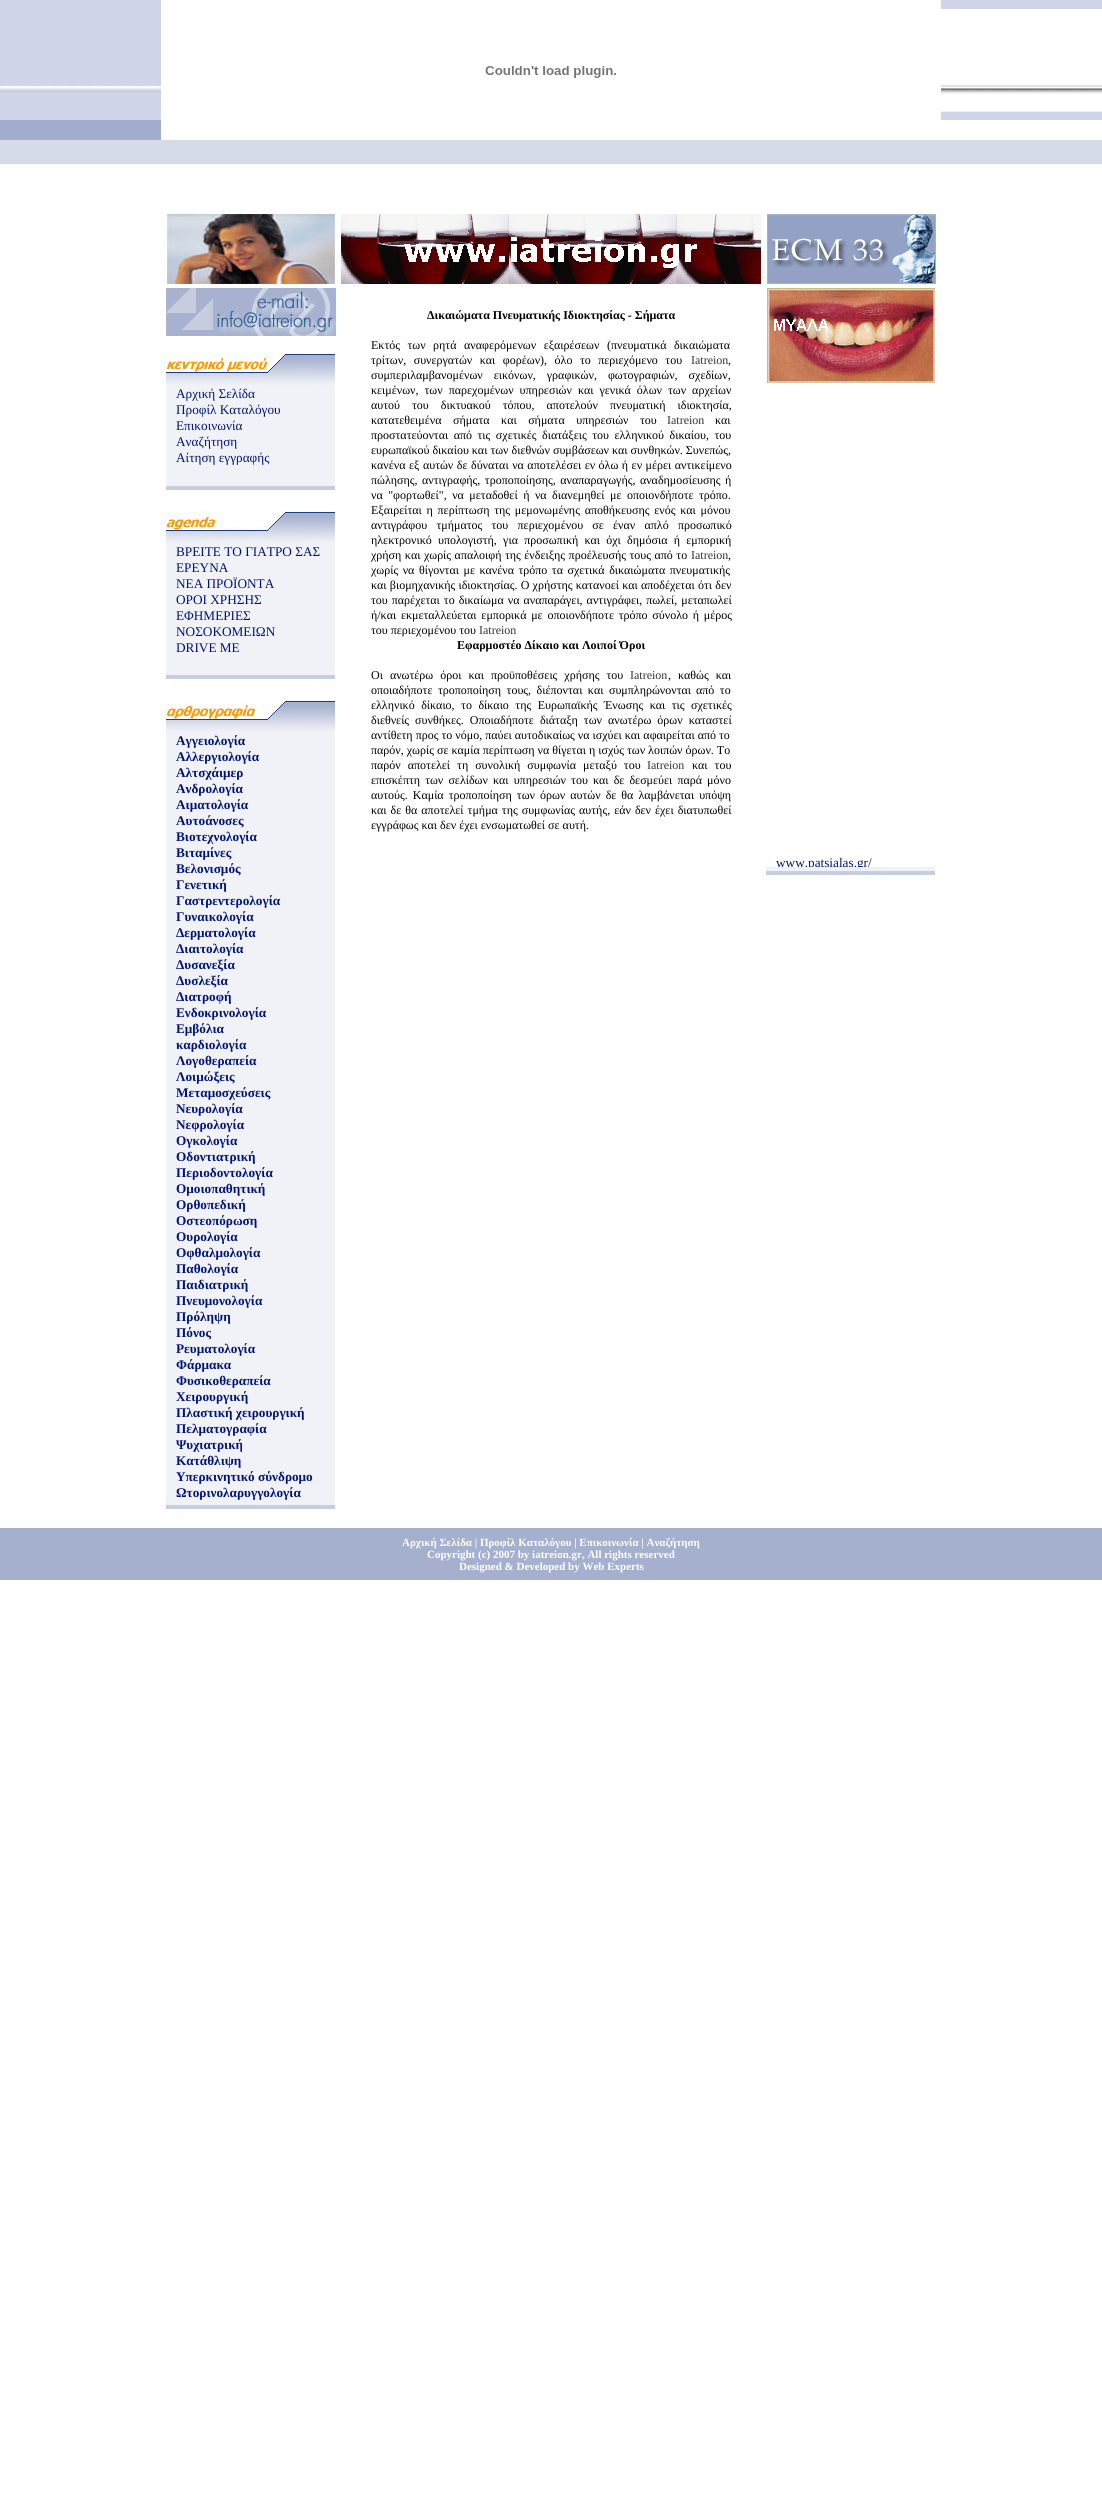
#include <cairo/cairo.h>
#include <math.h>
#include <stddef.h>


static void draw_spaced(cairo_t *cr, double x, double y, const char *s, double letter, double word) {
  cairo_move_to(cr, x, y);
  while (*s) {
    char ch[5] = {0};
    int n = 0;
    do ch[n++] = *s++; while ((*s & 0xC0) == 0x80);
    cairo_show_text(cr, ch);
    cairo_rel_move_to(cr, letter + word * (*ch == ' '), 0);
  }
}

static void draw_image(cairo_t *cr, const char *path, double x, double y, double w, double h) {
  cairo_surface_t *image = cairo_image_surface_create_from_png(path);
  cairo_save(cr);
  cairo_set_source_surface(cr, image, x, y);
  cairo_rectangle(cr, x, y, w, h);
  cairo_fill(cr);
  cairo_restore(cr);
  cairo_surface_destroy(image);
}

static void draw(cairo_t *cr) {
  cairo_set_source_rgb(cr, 1, 1, 1);
  cairo_paint(cr);
  draw_image(cr, "images/1.png", 0, 0, 161, 140);
  draw_image(cr, "images/2.png", 485, 66, 131, 12);
  draw_image(cr, "images/3.png", 941, 0, 161, 120);
  draw_image(cr, "images/4.png", 0, 140, 1102, 24);
  draw_image(cr, "images/5.png", 167, 214, 168, 70);
  draw_image(cr, "images/6.png", 341, 214, 420, 70);
  draw_image(cr, "images/7.png", 767, 214, 169, 70);
  draw_image(cr, "images/8.png", 161, 288, 176, 48);
  draw_image(cr, "images/9.png", 161, 352, 176, 34);
  draw_image(cr, "images/10.png", 166, 386, 169, 96);
  draw_image(cr, "images/11.png", 165, 482, 171, 8);
  draw_image(cr, "images/12.png", 161, 510, 176, 34);
  draw_image(cr, "images/13.png", 166, 544, 169, 127);
  draw_image(cr, "images/11.png", 165, 671, 171, 8);
  draw_image(cr, "images/14.png", 161, 699, 176, 34);
  draw_image(cr, "images/15.png", 166, 733, 169, 768);
  draw_image(cr, "images/11.png", 165, 1501, 171, 8);
  draw_image(cr, "images/16.png", 767, 288, 168, 95);
  draw_image(cr, "images/11.png", 765, 867, 171, 8);
  cairo_set_source_rgb(cr, 165 / 255.0, 176 / 255.0, 206 / 255.0);
  cairo_rectangle(cr, 0, 1528, 1102, 52);
  cairo_fill(cr);
  cairo_select_font_face(cr, "Liberation Serif", CAIRO_FONT_SLANT_NORMAL, CAIRO_FONT_WEIGHT_NORMAL);
  cairo_set_font_size(cr, 13.25);
  cairo_set_source_rgb(cr, 0, 21 / 255.0, 119 / 255.0);
  cairo_move_to(cr, 176, 398);
  cairo_show_text(cr, "Αρχική Σελίδα");
  cairo_move_to(cr, 176, 414);
  cairo_show_text(cr, "Προφίλ Καταλόγου");
  cairo_move_to(cr, 176, 430);
  cairo_show_text(cr, "Επικοινωνία");
  cairo_move_to(cr, 176, 446);
  cairo_show_text(cr, "Αναζήτηση");
  cairo_move_to(cr, 176, 462);
  cairo_show_text(cr, "Αίτηση εγγραφής");
  cairo_move_to(cr, 176, 556);
  cairo_show_text(cr, "ΒΡΕΙΤΕ ΤΟ ΓΙΑΤΡΟ ΣΑΣ");
  cairo_move_to(cr, 176, 572);
  cairo_show_text(cr, "ΕΡΕΥΝΑ");
  cairo_move_to(cr, 176, 588);
  cairo_show_text(cr, "ΝΕΑ ΠΡΟΪΟΝΤΑ");
  cairo_move_to(cr, 176, 604);
  cairo_show_text(cr, "ΟΡΟΙ ΧΡΗΣΗΣ");
  cairo_move_to(cr, 176, 620);
  cairo_show_text(cr, "ΕΦΗΜΕΡΙΕΣ");
  cairo_move_to(cr, 176, 636);
  cairo_show_text(cr, "ΝΟΣΟΚΟΜΕΙΩΝ");
  cairo_move_to(cr, 176, 652);
  cairo_show_text(cr, "DRIVE ME");
  cairo_select_font_face(cr, "Liberation Serif", CAIRO_FONT_SLANT_NORMAL, CAIRO_FONT_WEIGHT_BOLD);
  cairo_move_to(cr, 176, 745);
  cairo_show_text(cr, "Αγγειολογία");
  cairo_move_to(cr, 176, 761);
  cairo_show_text(cr, "Αλλεργιολογία");
  cairo_move_to(cr, 176, 777);
  cairo_show_text(cr, "Αλτσχάιμερ");
  cairo_move_to(cr, 176, 793);
  cairo_show_text(cr, "Ανδρολογία");
  cairo_move_to(cr, 176, 809);
  cairo_show_text(cr, "Αιματολογία");
  cairo_move_to(cr, 176, 825);
  cairo_show_text(cr, "Αυτοάνοσες");
  cairo_move_to(cr, 176, 841);
  cairo_show_text(cr, "Βιοτεχνολογία");
  cairo_move_to(cr, 176, 857);
  cairo_show_text(cr, "Βιταμίνες");
  cairo_move_to(cr, 176, 873);
  cairo_show_text(cr, "Βελονισμός");
  cairo_move_to(cr, 176, 889);
  cairo_show_text(cr, "Γενετική");
  cairo_move_to(cr, 176, 905);
  cairo_show_text(cr, "Γαστρεντερολογία");
  cairo_move_to(cr, 176, 921);
  cairo_show_text(cr, "Γυναικολογία");
  cairo_move_to(cr, 176, 937);
  cairo_show_text(cr, "Δερματολογία");
  cairo_move_to(cr, 176, 953);
  cairo_show_text(cr, "Διαιτολογία");
  cairo_move_to(cr, 176, 969);
  cairo_show_text(cr, "Δυσανεξία");
  cairo_move_to(cr, 176, 985);
  cairo_show_text(cr, "Δυσλεξία");
  cairo_move_to(cr, 176, 1001);
  cairo_show_text(cr, "Διατροφή");
  cairo_move_to(cr, 176, 1017);
  cairo_show_text(cr, "Ενδοκρινολογία");
  cairo_move_to(cr, 176, 1033);
  cairo_show_text(cr, "Εμβόλια");
  cairo_move_to(cr, 176, 1049);
  cairo_show_text(cr, "καρδιολογία");
  cairo_move_to(cr, 176, 1065);
  cairo_show_text(cr, "Λογοθεραπεία");
  cairo_move_to(cr, 176, 1081);
  cairo_show_text(cr, "Λοιμώξεις");
  cairo_move_to(cr, 176, 1097);
  cairo_show_text(cr, "Μεταμοσχεύσεις");
  cairo_move_to(cr, 176, 1113);
  cairo_show_text(cr, "Νευρολογία");
  cairo_move_to(cr, 176, 1129);
  cairo_show_text(cr, "Νεφρολογία");
  cairo_move_to(cr, 176, 1145);
  cairo_show_text(cr, "Ογκολογία");
  cairo_move_to(cr, 176, 1161);
  cairo_show_text(cr, "Οδοντιατρική");
  cairo_move_to(cr, 176, 1177);
  cairo_show_text(cr, "Περιοδοντολογία");
  cairo_move_to(cr, 176, 1193);
  cairo_show_text(cr, "Ομοιοπαθητική");
  cairo_move_to(cr, 176, 1209);
  cairo_show_text(cr, "Ορθοπεδική");
  cairo_move_to(cr, 176, 1225);
  cairo_show_text(cr, "Οστεοπόρωση");
  cairo_move_to(cr, 176, 1241);
  cairo_show_text(cr, "Ουρολογία");
  cairo_move_to(cr, 176, 1257);
  cairo_show_text(cr, "Οφθαλμολογία");
  cairo_move_to(cr, 176, 1273);
  cairo_show_text(cr, "Παθολογία");
  cairo_move_to(cr, 176, 1289);
  cairo_show_text(cr, "Παιδιατρική");
  cairo_move_to(cr, 176, 1305);
  cairo_show_text(cr, "Πνευμονολογία");
  cairo_move_to(cr, 176, 1321);
  cairo_show_text(cr, "Πρόληψη");
  cairo_move_to(cr, 176, 1337);
  cairo_show_text(cr, "Πόνος");
  cairo_move_to(cr, 176, 1353);
  cairo_show_text(cr, "Ρευματολογία");
  cairo_move_to(cr, 176, 1369);
  cairo_show_text(cr, "Φάρμακα");
  cairo_move_to(cr, 176, 1385);
  cairo_show_text(cr, "Φυσικοθεραπεία");
  cairo_move_to(cr, 176, 1401);
  cairo_show_text(cr, "Χειρουργική");
  cairo_move_to(cr, 176, 1417);
  cairo_show_text(cr, "Πλαστική χειρουργική");
  cairo_move_to(cr, 176, 1433);
  cairo_show_text(cr, "Πελματογραφία");
  cairo_move_to(cr, 176, 1449);
  cairo_show_text(cr, "Ψυχιατρική");
  cairo_move_to(cr, 176, 1465);
  cairo_show_text(cr, "Κατάθλιψη");
  cairo_move_to(cr, 176, 1481);
  cairo_show_text(cr, "Υπερκινητικό σύνδρομο");
  cairo_move_to(cr, 176, 1497);
  cairo_show_text(cr, "Ωτορινολαρυγγολογία");
  cairo_set_font_size(cr, 12);
  cairo_set_source_rgb(cr, 0, 0, 0);
  cairo_move_to(cr, 427, 319);
  cairo_show_text(cr, "Δικαιώματα Πνευματικής Ιδιοκτησίας - Σήματα");
  cairo_select_font_face(cr, "Liberation Serif", CAIRO_FONT_SLANT_NORMAL, CAIRO_FONT_WEIGHT_NORMAL);
  draw_spaced(cr, 371, 349, "Εκτός των ρητά αναφερόμενων εξαιρέσεων (πνευματικά δικαιώματα", 0, 4.5);
  draw_spaced(cr, 371, 364, "τρίτων, συνεργατών και φορέων), όλο το περιεχόμενο του", 0, 4.5);
  cairo_set_source_rgb(cr, 51 / 255.0, 51 / 255.0, 51 / 255.0);
  cairo_move_to(cr, 691, 364);
  cairo_show_text(cr, "Iatreion");
  cairo_set_source_rgb(cr, 0, 0, 0);
  cairo_move_to(cr, 728, 364);
  cairo_show_text(cr, ",");
  draw_spaced(cr, 371, 379, "συμπεριλαμβανομένων εικόνων, γραφικών, φωτογραφιών, σχεδίων,", 0, 8);
  draw_spaced(cr, 371, 394, "κειμένων, των παρεχομένων υπηρεσιών και γενικά όλων των αρχείων", 0, 3);
  draw_spaced(cr, 371, 409, "αυτού του δικτυακού τόπου, αποτελούν πνευματική ιδιοκτησία,", 0, 9);
  draw_spaced(cr, 371, 424, "κατατεθειμένα σήματα και σήματα υπηρεσιών του", 0, 8.5);
  cairo_set_source_rgb(cr, 51 / 255.0, 51 / 255.0, 51 / 255.0);
  cairo_move_to(cr, 667, 424);
  cairo_show_text(cr, "Iatreion");
  cairo_set_source_rgb(cr, 0, 0, 0);
  cairo_move_to(cr, 715, 424);
  cairo_show_text(cr, "και");
  draw_spaced(cr, 371, 439, "προστατεύονται από τις σχετικές διατάξεις του ελληνικού δικαίου, του", 0, 2.5);
  cairo_move_to(cr, 371, 454);
  cairo_show_text(cr, "ευρωπαϊκού δικαίου και των διεθνών συμβάσεων και συνθηκών. Συνεπώς,");
  draw_spaced(cr, 371, 469, "κανένα εξ αυτών δε δύναται να αποτελέσει εν όλω ή εν μέρει αντικείμενο", 0, 0.5);
  draw_spaced(cr, 371, 484, "πώλησης, αντιγραφής, τροποποίησης, αναπαραγωγής, αναδημοσίευσης ή", 0, 1.5);
  draw_spaced(cr, 371, 499, "να \"φορτωθεί\", να μεταδοθεί ή να διανεμηθεί με οποιονδήποτε τρόπο.", 0, 2.5);
  draw_spaced(cr, 371, 514, "Εξαιρείται η περίπτωση της μεμονωμένης αποθήκευσης ενός και μόνου", 0, 1.75);
  draw_spaced(cr, 371, 529, "αντιγράφου τμήματος του περιεχομένου σε έναν απλό προσωπικό", 0, 6.25);
  draw_spaced(cr, 371, 544, "ηλεκτρονικό υπολογιστή, για προσωπική και όχι δημόσια ή εμπορική", 0, 3.25);
  draw_spaced(cr, 371, 559, "χρήση και χωρίς απαλοιφή της ένδειξης προέλευσής τους από το", 0, 0.5);
  cairo_set_source_rgb(cr, 51 / 255.0, 51 / 255.0, 51 / 255.0);
  cairo_move_to(cr, 691, 559);
  cairo_show_text(cr, "Iatreion");
  cairo_set_source_rgb(cr, 0, 0, 0);
  cairo_move_to(cr, 728, 559);
  cairo_show_text(cr, ",");
  draw_spaced(cr, 371, 574, "χωρίς να θίγονται με κανένα τρόπο τα σχετικά δικαιώματα πνευματικής", 0, 1.5);
  draw_spaced(cr, 371, 589, "και βιομηχανικής ιδιοκτησίας. Ο χρήστης κατανοεί και αποδέχεται ότι δεν", 0, 0.25);
  draw_spaced(cr, 371, 604, "του παρέχεται το δικαίωμα να αναπαράγει, αντιγράφει, πωλεί, μεταπωλεί", 0, 1);
  draw_spaced(cr, 371, 619, "ή/και εκμεταλλεύεται εμπορικά με οποιονδήποτε τρόπο σύνολο ή μέρος", 0, 1.75);
  cairo_move_to(cr, 371, 634);
  cairo_show_text(cr, "του περιεχομένου του");
  cairo_set_source_rgb(cr, 51 / 255.0, 51 / 255.0, 51 / 255.0);
  cairo_move_to(cr, 479, 634);
  cairo_show_text(cr, "Iatreion");
  cairo_select_font_face(cr, "Liberation Serif", CAIRO_FONT_SLANT_NORMAL, CAIRO_FONT_WEIGHT_BOLD);
  cairo_set_source_rgb(cr, 0, 0, 0);
  cairo_move_to(cr, 457, 649);
  cairo_show_text(cr, "Εφαρμοστέο Δίκαιο και Λοιποί Όροι");
  cairo_select_font_face(cr, "Liberation Serif", CAIRO_FONT_SLANT_NORMAL, CAIRO_FONT_WEIGHT_NORMAL);
  draw_spaced(cr, 371, 679, "Οι ανωτέρω όροι και προϋποθέσεις χρήσης του", 0, 4);
  cairo_set_source_rgb(cr, 51 / 255.0, 51 / 255.0, 51 / 255.0);
  cairo_move_to(cr, 630, 679);
  cairo_show_text(cr, "Iatreion");
  cairo_set_source_rgb(cr, 0, 0, 0);
  draw_spaced(cr, 668, 679, ", καθώς και", 0, 4);
  draw_spaced(cr, 371, 694, "οποιαδήποτε τροποποίηση τους, διέπονται και συμπληρώνονται", 0, 2.5);
  draw_spaced(cr, 696, 694, "από το", 0, 2.5);
  draw_spaced(cr, 371, 709, "ελληνικό δίκαιο, το δίκαιο της Ευρωπαϊκής Ένωσης και τις σχετικές", 0, 3.5);
  draw_spaced(cr, 371, 724, "διεθνείς συνθήκες. Οποιαδήποτε διάταξη των ανωτέρω όρων καταστεί", 0, 3);
  cairo_move_to(cr, 371, 739);
  cairo_show_text(cr, "αντίθετη προς το νόμο, παύει αυτοδικαίως να ισχύει και αφαιρείται από το");
  cairo_move_to(cr, 371, 754);
  cairo_show_text(cr, "παρόν, χωρίς σε καμία περίπτωση να θίγεται η ισχύς των λοιπών όρων. Το");
  draw_spaced(cr, 371, 769, "παρόν αποτελεί τη συνολική συμφωνία μεταξύ του", 0, 4);
  cairo_set_source_rgb(cr, 51 / 255.0, 51 / 255.0, 51 / 255.0);
  cairo_move_to(cr, 647, 769);
  cairo_show_text(cr, "Iatreion");
  cairo_set_source_rgb(cr, 0, 0, 0);
  draw_spaced(cr, 692, 769, "και του", 0, 4);
  draw_spaced(cr, 371, 784, "επισκέπτη των σελίδων και υπηρεσιών του και δε δεσμεύει παρά μόνο", 0, 2.1);
  draw_spaced(cr, 371, 799, "αυτούς. Καμία τροποποίηση των όρων αυτών δε θα λαμβάνεται υπόψη", 0, 2);
  draw_spaced(cr, 371, 814, "και δε θα αποτελεί τμήμα της συμφωνίας αυτής, εάν δεν έχει διατυπωθεί", 0, 1);
  cairo_move_to(cr, 371, 829);
  cairo_show_text(cr, "εγγράφως και δεν έχει ενσωματωθεί σε αυτή.");
  cairo_save(cr);
  cairo_rectangle(cr, 761, 687, 180, 180);
  cairo_clip(cr);
  cairo_set_font_size(cr, 13.25);
  cairo_set_source_rgb(cr, 0, 21 / 255.0, 119 / 255.0);
  cairo_move_to(cr, 776, 867);
  cairo_show_text(cr, "www.patsialas.gr/");
  cairo_restore(cr);
  cairo_select_font_face(cr, "Liberation Serif", CAIRO_FONT_SLANT_NORMAL, CAIRO_FONT_WEIGHT_BOLD);
  cairo_set_font_size(cr, 11);
  cairo_set_source_rgb(cr, 1, 1, 1);
  cairo_move_to(cr, 402, 1546);
  cairo_show_text(cr, "Αρχική Σελίδα | Προφίλ Καταλόγου | Επικοινωνία | Αναζήτηση");
  cairo_move_to(cr, 427, 1558);
  cairo_show_text(cr, "Copyright (c) 2007 by iatreion.gr, All rights reserved");
  cairo_move_to(cr, 459, 1570);
  cairo_show_text(cr, "Designed & Developed by Web Experts");
}

int main(void) {
  cairo_surface_t *surface = cairo_image_surface_create(CAIRO_FORMAT_RGB24, 1102, 2500);
  cairo_t *cr = cairo_create(surface);
  cairo_font_options_t *options = cairo_font_options_create();
  cairo_font_options_set_hint_metrics(options, CAIRO_HINT_METRICS_OFF);
  cairo_font_options_set_hint_style(options, CAIRO_HINT_STYLE_NONE);
  cairo_set_font_options(cr, options);
  cairo_set_miter_limit(cr, 4);
  draw(cr);
  cairo_surface_write_to_png(surface, "out.png");
  cairo_font_options_destroy(options);
  cairo_destroy(cr);
  cairo_surface_destroy(surface);
  return 0;
}
